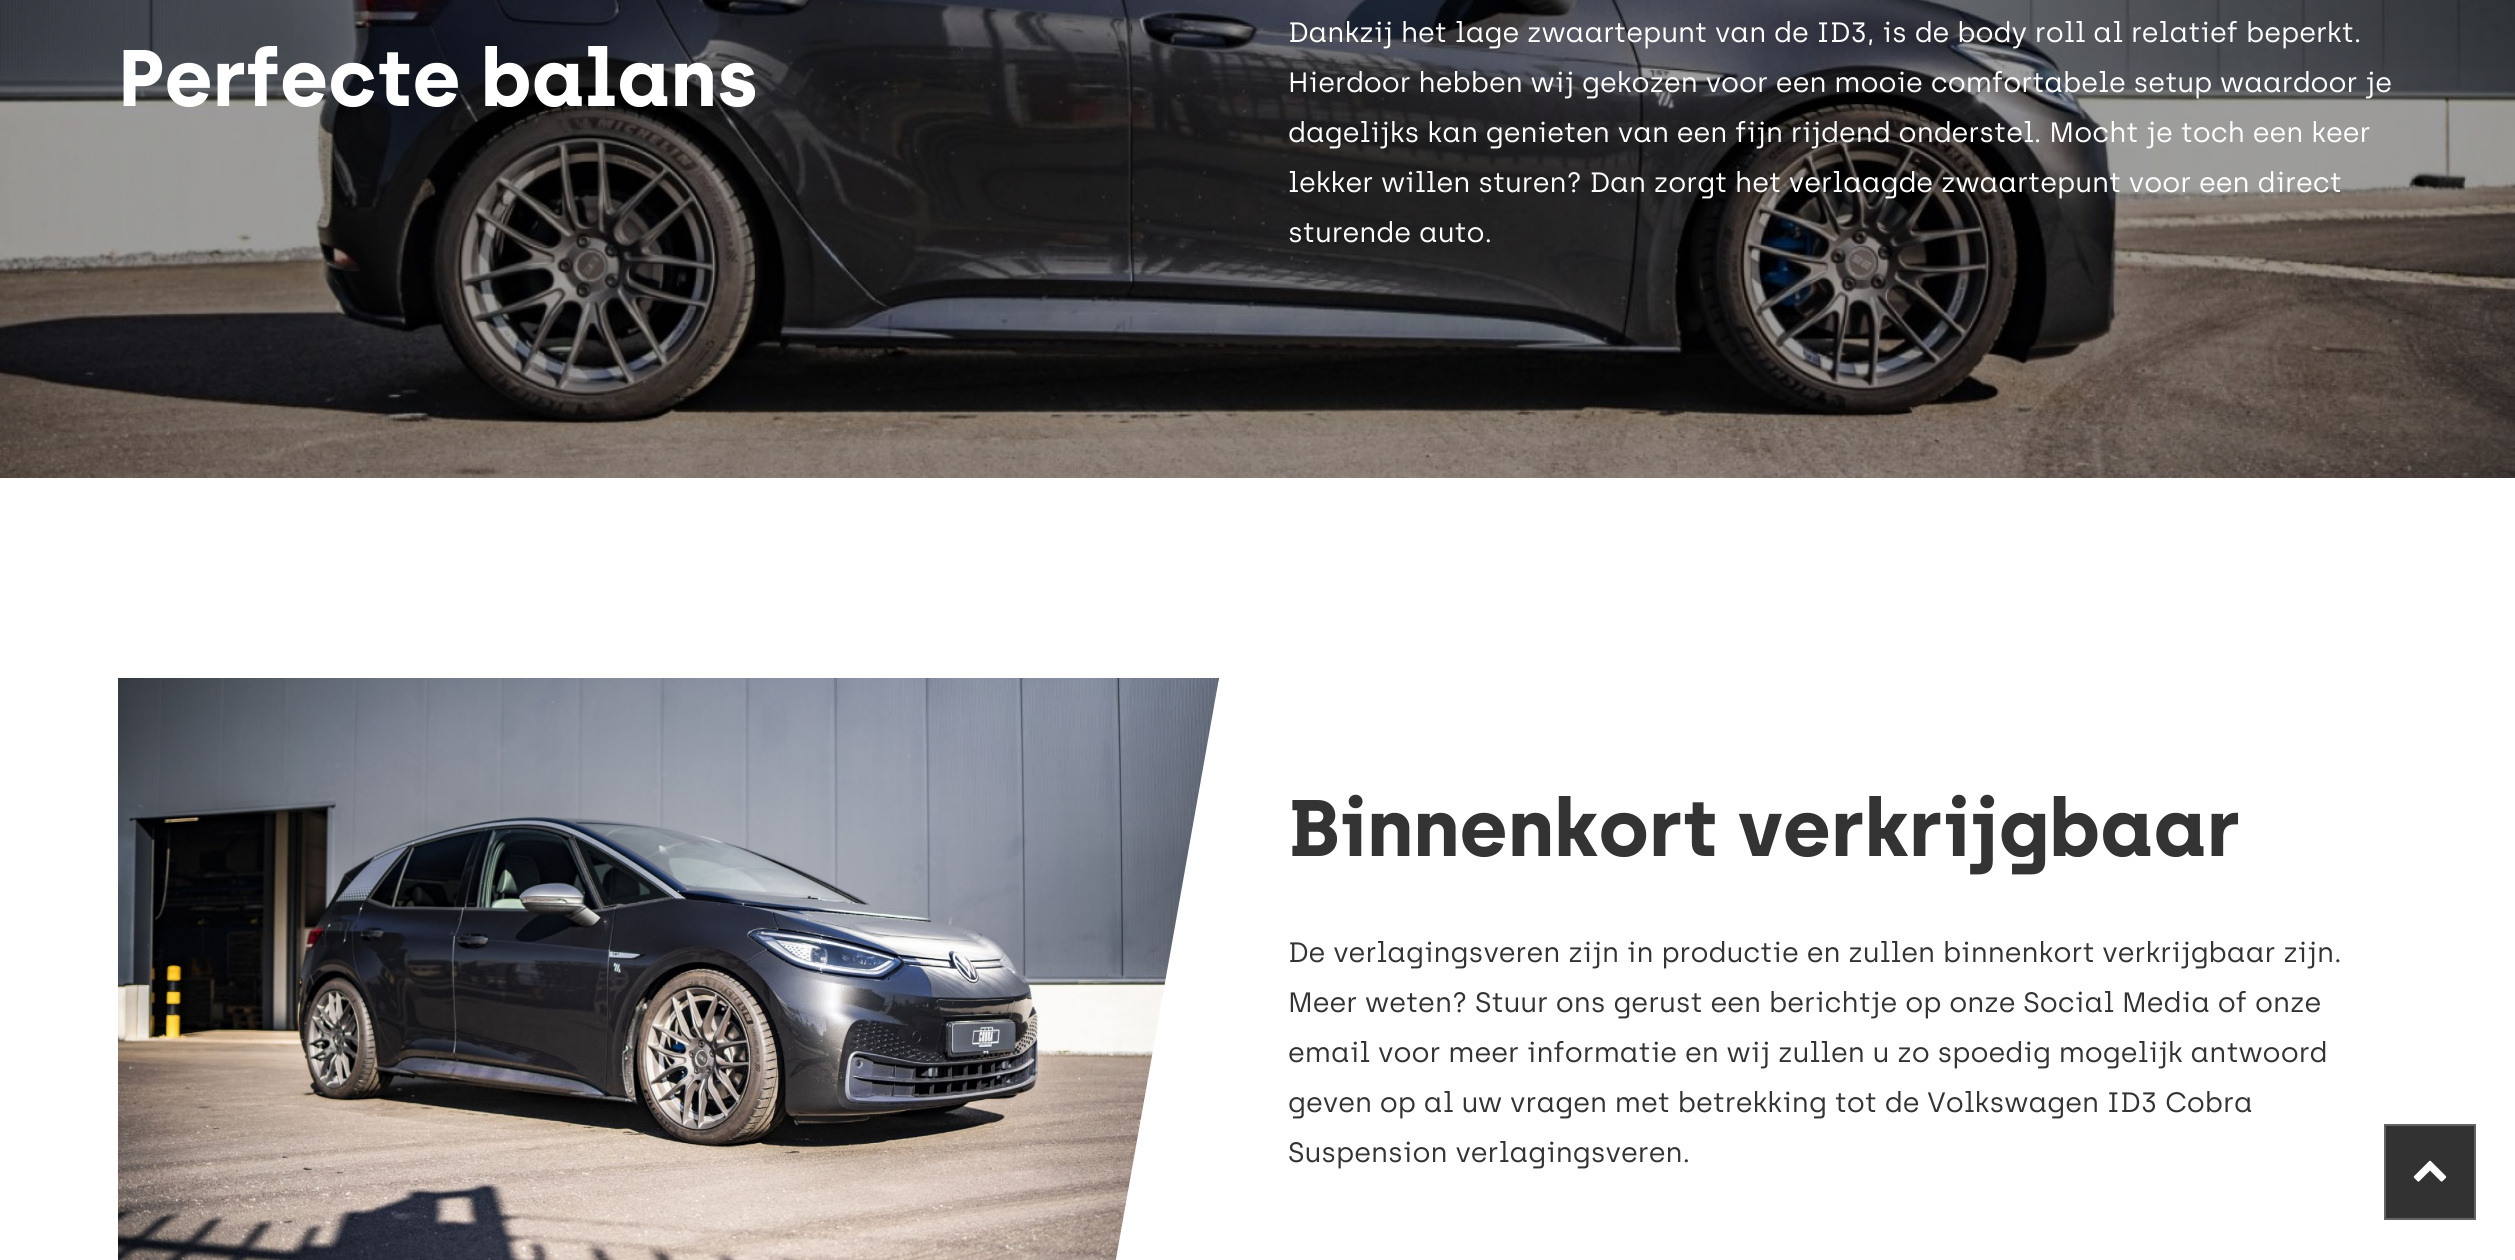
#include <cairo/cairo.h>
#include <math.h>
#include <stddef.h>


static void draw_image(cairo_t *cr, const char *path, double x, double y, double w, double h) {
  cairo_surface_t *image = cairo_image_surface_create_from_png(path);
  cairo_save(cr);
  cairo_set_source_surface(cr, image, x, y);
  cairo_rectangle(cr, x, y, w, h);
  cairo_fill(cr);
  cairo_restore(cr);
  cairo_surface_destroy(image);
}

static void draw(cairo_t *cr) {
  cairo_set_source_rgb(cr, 1, 1, 1);
  cairo_paint(cr);
  draw_image(cr, "images/1.png", 0, 0, 2515, 478);
  draw_image(cr, "images/2.png", 118, 678, 1101, 582);
  cairo_set_source_rgb(cr, 1, 1, 1);
  cairo_new_path(cr);
  cairo_move_to(cr, 1219, 678);
  cairo_line_to(cr, 1355, 678);
  cairo_line_to(cr, 1241, 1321);
  cairo_line_to(cr, 1105, 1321);
  cairo_close_path(cr);
  cairo_fill(cr);
  cairo_set_source_rgb(cr, 50 / 255.0, 50 / 255.0, 50 / 255.0);
  cairo_rectangle(cr, 2385, 1125, 90, 94);
  cairo_fill_preserve(cr);
  cairo_set_source_rgb(cr, 100 / 255.0, 100 / 255.0, 100 / 255.0);
  cairo_stroke(cr);
  draw_image(cr, "images/3.png", 2413, 1160, 34, 22);
  cairo_select_font_face(cr, "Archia", CAIRO_FONT_SLANT_NORMAL, CAIRO_FONT_WEIGHT_BOLD);
  cairo_set_font_size(cr, 80);
  cairo_set_source_rgb(cr, 1, 1, 1);
  cairo_move_to(cr, 118, 106);
  cairo_show_text(cr, "Perfecte balans");
  cairo_select_font_face(cr, "Archia", CAIRO_FONT_SLANT_NORMAL, CAIRO_FONT_WEIGHT_NORMAL);
  cairo_set_font_size(cr, 28);
  cairo_move_to(cr, 1288, 42);
  cairo_show_text(cr, "Dankzij het lage zwaartepunt van de ID3, is de body roll al relatief beperkt.");
  cairo_move_to(cr, 1288, 92);
  cairo_show_text(cr, "Hierdoor hebben wij gekozen voor een mooie comfortabele setup waardoor je");
  cairo_move_to(cr, 1288, 142);
  cairo_show_text(cr, "dagelijks kan genieten van een fijn rijdend onderstel. Mocht je toch een keer");
  cairo_move_to(cr, 1288, 192);
  cairo_show_text(cr, "lekker willen sturen? Dan zorgt het verlaagde zwaartepunt voor een direct");
  cairo_move_to(cr, 1288, 242);
  cairo_show_text(cr, "sturende auto.");
  cairo_select_font_face(cr, "Archia", CAIRO_FONT_SLANT_NORMAL, CAIRO_FONT_WEIGHT_BOLD);
  cairo_set_font_size(cr, 80);
  cairo_set_source_rgb(cr, 51 / 255.0, 51 / 255.0, 51 / 255.0);
  cairo_move_to(cr, 1288, 856);
  cairo_show_text(cr, "Binnenkort verkrijgbaar");
  cairo_select_font_face(cr, "Archia", CAIRO_FONT_SLANT_NORMAL, CAIRO_FONT_WEIGHT_NORMAL);
  cairo_set_font_size(cr, 28);
  cairo_move_to(cr, 1288, 962);
  cairo_show_text(cr, "De verlagingsveren zijn in productie en zullen binnenkort verkrijgbaar zijn.");
  cairo_move_to(cr, 1288, 1012);
  cairo_show_text(cr, "Meer weten? Stuur ons gerust een berichtje op onze Social Media of onze");
  cairo_move_to(cr, 1288, 1062);
  cairo_show_text(cr, "email voor meer informatie en wij zullen u zo spoedig mogelijk antwoord");
  cairo_move_to(cr, 1288, 1112);
  cairo_show_text(cr, "geven op al uw vragen met betrekking tot de Volkswagen ID3 Cobra");
  cairo_move_to(cr, 1288, 1162);
  cairo_show_text(cr, "Suspension verlagingsveren.");
}

int main(void) {
  cairo_surface_t *surface = cairo_image_surface_create(CAIRO_FORMAT_RGB24, 2515, 1260);
  cairo_t *cr = cairo_create(surface);
  cairo_font_options_t *options = cairo_font_options_create();
  cairo_font_options_set_hint_metrics(options, CAIRO_HINT_METRICS_OFF);
  cairo_font_options_set_hint_style(options, CAIRO_HINT_STYLE_NONE);
  cairo_set_font_options(cr, options);
  cairo_set_miter_limit(cr, 4);
  draw(cr);
  cairo_surface_write_to_png(surface, "out.png");
  cairo_font_options_destroy(options);
  cairo_destroy(cr);
  cairo_surface_destroy(surface);
  return 0;
}
